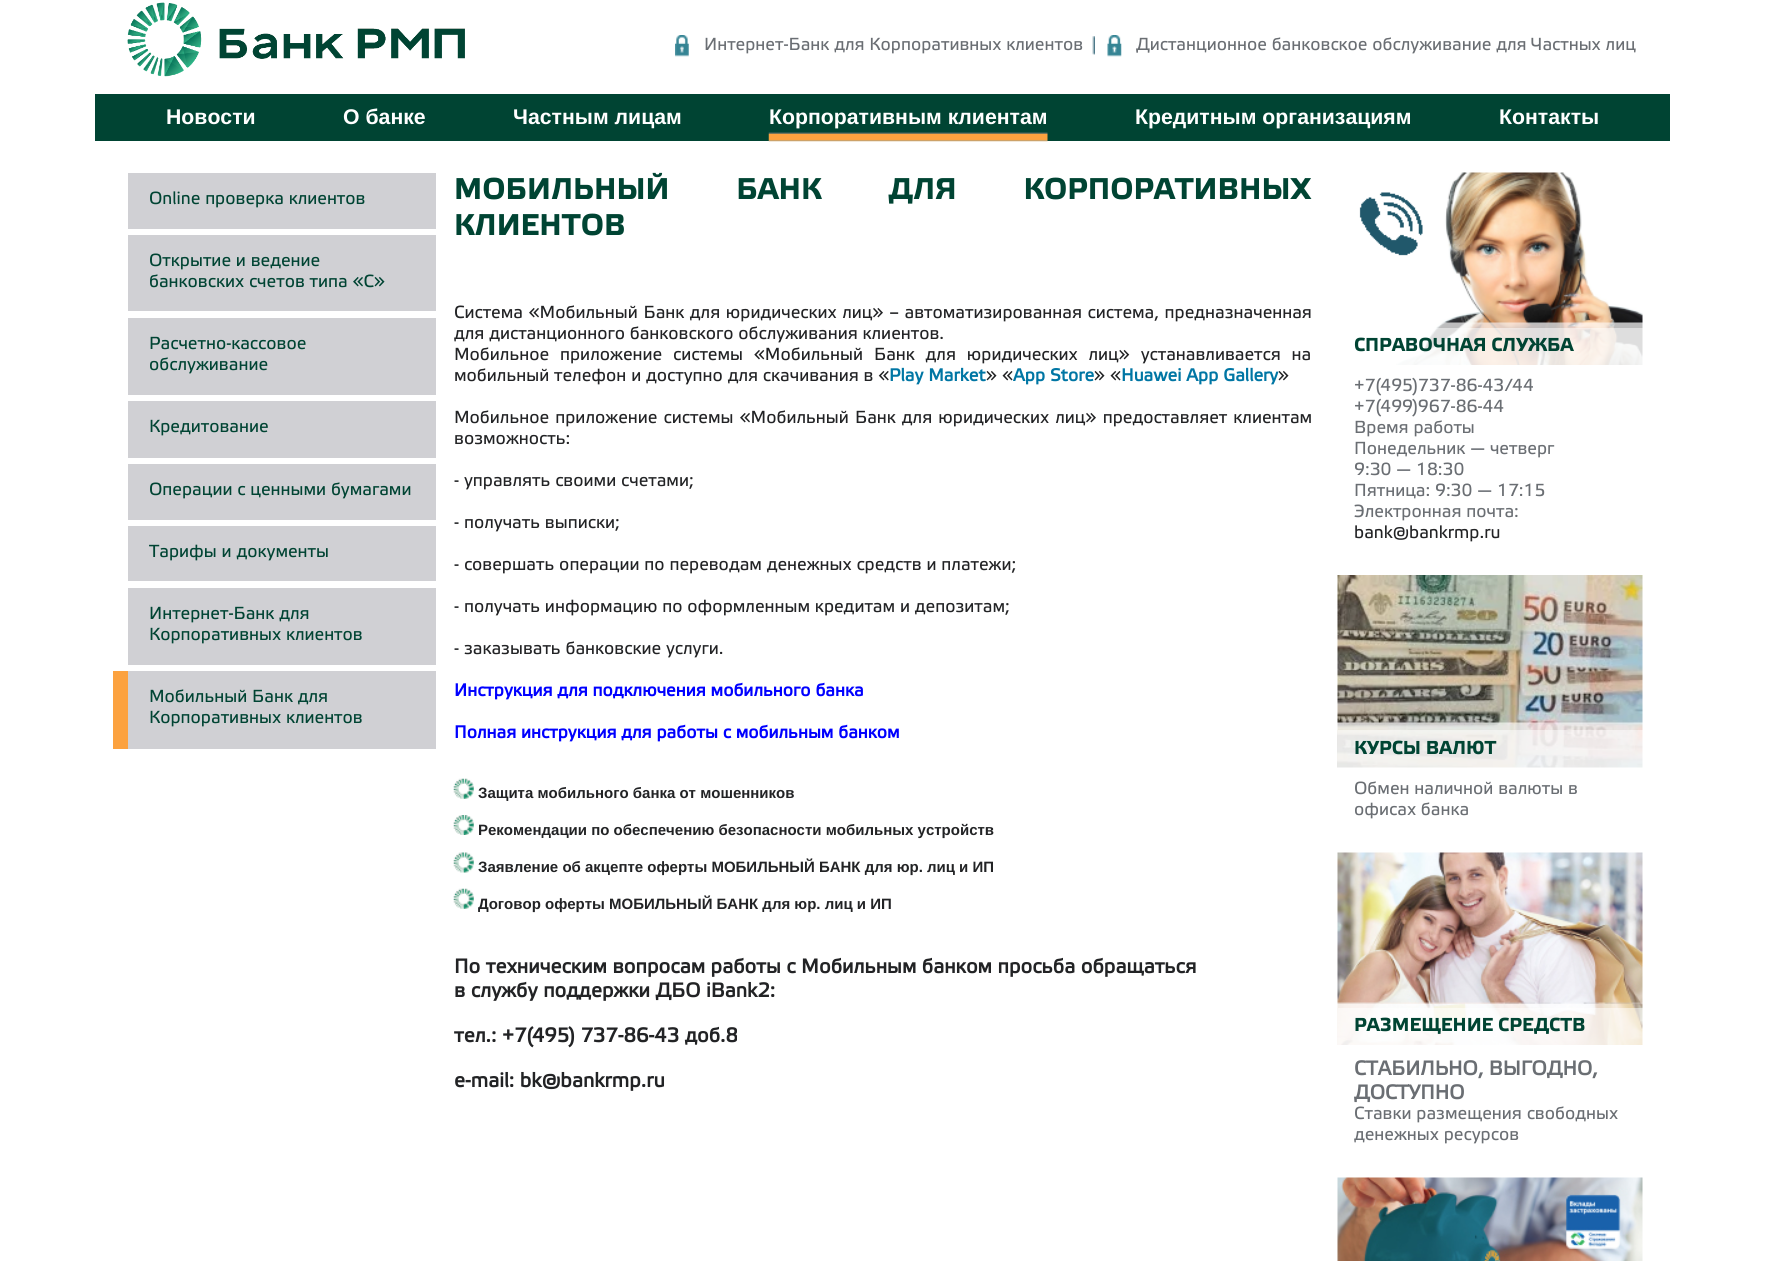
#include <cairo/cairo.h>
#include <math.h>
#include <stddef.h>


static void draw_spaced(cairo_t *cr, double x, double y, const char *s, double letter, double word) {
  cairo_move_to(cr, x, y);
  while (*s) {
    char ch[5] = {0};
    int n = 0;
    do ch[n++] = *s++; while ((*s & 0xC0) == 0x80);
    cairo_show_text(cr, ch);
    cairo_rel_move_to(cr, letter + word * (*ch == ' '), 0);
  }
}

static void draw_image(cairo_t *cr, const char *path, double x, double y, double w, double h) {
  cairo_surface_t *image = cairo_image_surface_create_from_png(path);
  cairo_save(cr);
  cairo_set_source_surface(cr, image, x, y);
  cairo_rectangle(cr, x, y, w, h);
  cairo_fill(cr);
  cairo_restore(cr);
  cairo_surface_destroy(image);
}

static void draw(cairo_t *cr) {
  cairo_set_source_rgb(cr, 1, 1, 1);
  cairo_paint(cr);
  draw_image(cr, "images/1.png", 127, 2, 338, 75);
  draw_image(cr, "images/2.png", 1092, 36, 3, 19);
  draw_image(cr, "images/3.png", 675, 35, 14, 22);
  draw_image(cr, "images/4.png", 1107, 35, 15, 22);
  cairo_set_source_rgb(cr, 0, 68 / 255.0, 51 / 255.0);
  cairo_rectangle(cr, 95, 94, 1575, 47);
  cairo_fill(cr);
  draw_image(cr, "images/5.png", 768, 132, 280, 10);
  cairo_set_source_rgb(cr, 208 / 255.0, 208 / 255.0, 212 / 255.0);
  cairo_rectangle(cr, 128, 173, 308, 56);
  cairo_fill(cr);
  cairo_rectangle(cr, 128, 235, 308, 76);
  cairo_fill(cr);
  cairo_rectangle(cr, 128, 318, 308, 77);
  cairo_fill(cr);
  cairo_rectangle(cr, 128, 401, 308, 57);
  cairo_fill(cr);
  cairo_rectangle(cr, 128, 464, 308, 56);
  cairo_fill(cr);
  cairo_rectangle(cr, 128, 526, 308, 55);
  cairo_fill(cr);
  cairo_rectangle(cr, 128, 588, 308, 77);
  cairo_fill(cr);
  cairo_rectangle(cr, 128, 671, 308, 78);
  cairo_fill(cr);
  cairo_set_source_rgb(cr, 252 / 255.0, 162 / 255.0, 63 / 255.0);
  cairo_rectangle(cr, 113, 671, 15, 78);
  cairo_fill(cr);
  draw_image(cr, "images/6.png", 453, 778, 21, 21);
  draw_image(cr, "images/7.png", 453, 815, 21, 20);
  draw_image(cr, "images/8.png", 453, 852, 21, 21);
  draw_image(cr, "images/6.png", 453, 888, 21, 21);
  draw_image(cr, "images/9.png", 1359, 172, 284, 193);
  cairo_set_source_rgba(cr, 1, 1, 1, 0.5);
  cairo_rectangle(cr, 1397, 328, 246, 37);
  cairo_fill(cr);
  draw_image(cr, "images/10.png", 1337, 575, 306, 193);
  cairo_rectangle(cr, 1338, 730, 305, 38);
  cairo_fill(cr);
  draw_image(cr, "images/11.png", 1337, 852, 306, 193);
  cairo_rectangle(cr, 1338, 1008, 305, 37);
  cairo_fill(cr);
  draw_image(cr, "images/12.png", 1337, 1177, 306, 84);
  cairo_select_font_face(cr, "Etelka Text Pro", CAIRO_FONT_SLANT_NORMAL, CAIRO_FONT_WEIGHT_NORMAL);
  cairo_set_font_size(cr, 17.5);
  cairo_set_source_rgb(cr, 106 / 255.0, 110 / 255.0, 115 / 255.0);
  cairo_move_to(cr, 704, 50);
  cairo_show_text(cr, "Интернет-Банк для Корпоративных клиентов");
  cairo_move_to(cr, 1136, 50);
  cairo_show_text(cr, "Дистанционное банковское обслуживание для Частных лиц");
  cairo_select_font_face(cr, "Liberation Sans", CAIRO_FONT_SLANT_NORMAL, CAIRO_FONT_WEIGHT_BOLD);
  cairo_set_font_size(cr, 21.25);
  cairo_set_source_rgb(cr, 1, 1, 1);
  cairo_move_to(cr, 166, 124);
  cairo_show_text(cr, "Новости");
  cairo_move_to(cr, 343, 124);
  cairo_show_text(cr, "О банке");
  cairo_move_to(cr, 513, 124);
  cairo_show_text(cr, "Частным лицам");
  cairo_move_to(cr, 769, 124);
  cairo_show_text(cr, "Корпоративным клиентам");
  cairo_move_to(cr, 1135, 124);
  cairo_show_text(cr, "Кредитным организациям");
  cairo_move_to(cr, 1499, 124);
  cairo_show_text(cr, "Контакты");
  cairo_select_font_face(cr, "Etelka Text Pro", CAIRO_FONT_SLANT_NORMAL, CAIRO_FONT_WEIGHT_NORMAL);
  cairo_set_font_size(cr, 17.5);
  cairo_set_source_rgb(cr, 0, 68 / 255.0, 51 / 255.0);
  cairo_move_to(cr, 149, 204);
  cairo_show_text(cr, "Online проверка клиентов");
  cairo_move_to(cr, 149, 266);
  cairo_show_text(cr, "Открытие и ведение");
  cairo_move_to(cr, 149, 287);
  cairo_show_text(cr, "банковских счетов типа «С»");
  cairo_move_to(cr, 149, 349);
  cairo_show_text(cr, "Расчетно-кассовое");
  cairo_move_to(cr, 149, 370);
  cairo_show_text(cr, "обслуживание");
  cairo_move_to(cr, 149, 432);
  cairo_show_text(cr, "Кредитование");
  cairo_move_to(cr, 149, 495);
  cairo_show_text(cr, "Операции с ценными бумагами");
  cairo_move_to(cr, 149, 557);
  cairo_show_text(cr, "Тарифы и документы");
  cairo_move_to(cr, 149, 619);
  cairo_show_text(cr, "Интернет-Банк для");
  cairo_move_to(cr, 149, 640);
  cairo_show_text(cr, "Корпоративных клиентов");
  cairo_move_to(cr, 149, 702);
  cairo_show_text(cr, "Мобильный Банк для");
  cairo_move_to(cr, 149, 723);
  cairo_show_text(cr, "Корпоративных клиентов");
  cairo_select_font_face(cr, "Etelka Text Pro", CAIRO_FONT_SLANT_NORMAL, CAIRO_FONT_WEIGHT_BOLD);
  cairo_set_font_size(cr, 30);
  draw_spaced(cr, 454, 199, "МОБИЛЬНЫЙ БАНК ДЛЯ КОРПОРАТИВНЫХ", 0, 59);
  cairo_move_to(cr, 454, 235);
  cairo_show_text(cr, "КЛИЕНТОВ");
  cairo_select_font_face(cr, "Etelka Text Pro", CAIRO_FONT_SLANT_NORMAL, CAIRO_FONT_WEIGHT_NORMAL);
  cairo_set_font_size(cr, 17.5);
  cairo_set_source_rgb(cr, 34 / 255.0, 35 / 255.0, 37 / 255.0);
  draw_spaced(cr, 454, 318, "Система «Мобильный Банк для юридических лиц» – автоматизированная система, предназначенная", 0, 0.75);
  cairo_move_to(cr, 454, 339);
  cairo_show_text(cr, "для дистанционного банковского обслуживания клиентов.");
  draw_spaced(cr, 454, 360, "Мобильное приложение системы «Мобильный Банк для юридических лиц» устанавливается на", 0, 6);
  cairo_move_to(cr, 454, 381);
  cairo_show_text(cr, "мобильный телефон и доступно для скачивания в «");
  cairo_select_font_face(cr, "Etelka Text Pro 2", CAIRO_FONT_SLANT_NORMAL, CAIRO_FONT_WEIGHT_BOLD);
  cairo_set_source_rgb(cr, 0, 118 / 255.0, 164 / 255.0);
  cairo_move_to(cr, 889, 381);
  cairo_show_text(cr, "Play Market");
  cairo_select_font_face(cr, "Etelka Text Pro", CAIRO_FONT_SLANT_NORMAL, CAIRO_FONT_WEIGHT_NORMAL);
  cairo_set_source_rgb(cr, 34 / 255.0, 35 / 255.0, 37 / 255.0);
  cairo_move_to(cr, 986, 381);
  cairo_show_text(cr, "» «");
  cairo_select_font_face(cr, "Etelka Text Pro 2", CAIRO_FONT_SLANT_NORMAL, CAIRO_FONT_WEIGHT_BOLD);
  cairo_set_source_rgb(cr, 0, 118 / 255.0, 164 / 255.0);
  cairo_move_to(cr, 1013, 381);
  cairo_show_text(cr, "App Store");
  cairo_select_font_face(cr, "Etelka Text Pro", CAIRO_FONT_SLANT_NORMAL, CAIRO_FONT_WEIGHT_NORMAL);
  cairo_set_source_rgb(cr, 34 / 255.0, 35 / 255.0, 37 / 255.0);
  cairo_move_to(cr, 1094, 381);
  cairo_show_text(cr, "» «");
  cairo_select_font_face(cr, "Etelka Text Pro 2", CAIRO_FONT_SLANT_NORMAL, CAIRO_FONT_WEIGHT_BOLD);
  cairo_set_source_rgb(cr, 0, 118 / 255.0, 164 / 255.0);
  cairo_move_to(cr, 1121, 381);
  cairo_show_text(cr, "Huawei App Gallery");
  cairo_select_font_face(cr, "Etelka Text Pro", CAIRO_FONT_SLANT_NORMAL, CAIRO_FONT_WEIGHT_NORMAL);
  cairo_set_source_rgb(cr, 34 / 255.0, 35 / 255.0, 37 / 255.0);
  cairo_move_to(cr, 1278, 381);
  cairo_show_text(cr, "»");
  draw_spaced(cr, 454, 423, "Мобильное приложение системы «Мобильный Банк для юридических лиц» предоставляет клиентам", 0, 1.25);
  cairo_move_to(cr, 454, 444);
  cairo_show_text(cr, "возможность:");
  cairo_move_to(cr, 454, 486);
  cairo_show_text(cr, "- управлять своими счетами;");
  cairo_move_to(cr, 454, 528);
  cairo_show_text(cr, "- получать выписки;");
  cairo_move_to(cr, 454, 570);
  cairo_show_text(cr, "- совершать операции по переводам денежных средств и платежи;");
  cairo_move_to(cr, 454, 612);
  cairo_show_text(cr, "- получать информацию по оформленным кредитам и депозитам;");
  cairo_move_to(cr, 454, 654);
  cairo_show_text(cr, "- заказывать банковские услуги.");
  cairo_select_font_face(cr, "Etelka Text Pro 2", CAIRO_FONT_SLANT_NORMAL, CAIRO_FONT_WEIGHT_BOLD);
  cairo_set_source_rgb(cr, 0, 0, 1);
  cairo_move_to(cr, 454, 696);
  cairo_show_text(cr, "Инструкция для подключения мобильного банка");
  cairo_move_to(cr, 454, 738);
  cairo_show_text(cr, "Полная инструкция для работы с мобильным банком");
  cairo_select_font_face(cr, "Liberation Sans", CAIRO_FONT_SLANT_NORMAL, CAIRO_FONT_WEIGHT_BOLD);
  cairo_set_font_size(cr, 15);
  cairo_set_source_rgb(cr, 34 / 255.0, 35 / 255.0, 37 / 255.0);
  cairo_move_to(cr, 478, 798);
  cairo_show_text(cr, "Защита мобильного банка от мошенников");
  cairo_move_to(cr, 478, 835);
  cairo_show_text(cr, "Рекомендации по обеспечению безопасности мобильных устройств");
  cairo_move_to(cr, 478, 872);
  cairo_show_text(cr, "Заявление об акцепте оферты МОБИЛЬНЫЙ БАНК для юр. лиц и ИП");
  cairo_move_to(cr, 478, 909);
  cairo_show_text(cr, "Договор оферты МОБИЛЬНЫЙ БАНК для юр. лиц и ИП");
  cairo_select_font_face(cr, "Etelka Text Pro 2", CAIRO_FONT_SLANT_NORMAL, CAIRO_FONT_WEIGHT_BOLD);
  cairo_set_font_size(cr, 20);
  cairo_move_to(cr, 454, 973);
  cairo_show_text(cr, "По техническим вопросам работы с Мобильным банком просьба обращаться");
  cairo_move_to(cr, 454, 997);
  cairo_show_text(cr, "в службу поддержки ДБО iBank2:");
  cairo_move_to(cr, 454, 1042);
  cairo_show_text(cr, "тел.: +7(495) 737-86-43 доб.8");
  cairo_move_to(cr, 454, 1087);
  cairo_show_text(cr, "e-mail: bk@bankrmp.ru");
  cairo_select_font_face(cr, "Etelka Text Pro", CAIRO_FONT_SLANT_NORMAL, CAIRO_FONT_WEIGHT_BOLD);
  cairo_set_font_size(cr, 18.75);
  cairo_set_source_rgb(cr, 0, 68 / 255.0, 51 / 255.0);
  cairo_move_to(cr, 1354, 351);
  cairo_show_text(cr, "СПРАВОЧНАЯ СЛУЖБА");
  cairo_select_font_face(cr, "Etelka Text Pro", CAIRO_FONT_SLANT_NORMAL, CAIRO_FONT_WEIGHT_NORMAL);
  cairo_set_font_size(cr, 17.5);
  cairo_set_source_rgb(cr, 106 / 255.0, 110 / 255.0, 115 / 255.0);
  cairo_move_to(cr, 1354, 391);
  cairo_show_text(cr, "+7(495)737-86-43/44");
  cairo_move_to(cr, 1354, 412);
  cairo_show_text(cr, "+7(499)967-86-44");
  cairo_move_to(cr, 1354, 433);
  cairo_show_text(cr, "Время работы");
  cairo_move_to(cr, 1354, 454);
  cairo_show_text(cr, "Понедельник — четверг");
  cairo_move_to(cr, 1354, 475);
  cairo_show_text(cr, "9:30 — 18:30");
  cairo_move_to(cr, 1354, 496);
  cairo_show_text(cr, "Пятница: 9:30 — 17:15");
  cairo_move_to(cr, 1354, 517);
  cairo_show_text(cr, "Электронная почта:");
  cairo_set_source_rgb(cr, 34 / 255.0, 35 / 255.0, 37 / 255.0);
  cairo_move_to(cr, 1354, 538);
  cairo_show_text(cr, "bank@bankrmp.ru");
  cairo_select_font_face(cr, "Etelka Text Pro", CAIRO_FONT_SLANT_NORMAL, CAIRO_FONT_WEIGHT_BOLD);
  cairo_set_font_size(cr, 18.75);
  cairo_set_source_rgb(cr, 0, 68 / 255.0, 51 / 255.0);
  cairo_move_to(cr, 1354, 754);
  cairo_show_text(cr, "КУРСЫ ВАЛЮТ");
  cairo_select_font_face(cr, "Etelka Text Pro", CAIRO_FONT_SLANT_NORMAL, CAIRO_FONT_WEIGHT_NORMAL);
  cairo_set_font_size(cr, 17.5);
  cairo_set_source_rgb(cr, 106 / 255.0, 110 / 255.0, 115 / 255.0);
  cairo_move_to(cr, 1354, 794);
  cairo_show_text(cr, "Обмен наличной валюты в");
  cairo_move_to(cr, 1354, 815);
  cairo_show_text(cr, "офисах банка");
  cairo_select_font_face(cr, "Etelka Text Pro", CAIRO_FONT_SLANT_NORMAL, CAIRO_FONT_WEIGHT_BOLD);
  cairo_set_font_size(cr, 18.75);
  cairo_set_source_rgb(cr, 0, 68 / 255.0, 51 / 255.0);
  cairo_move_to(cr, 1354, 1031);
  cairo_show_text(cr, "РАЗМЕЩЕНИЕ СРЕДСТВ");
  cairo_select_font_face(cr, "Etelka Text Pro 2", CAIRO_FONT_SLANT_NORMAL, CAIRO_FONT_WEIGHT_BOLD);
  cairo_set_font_size(cr, 20);
  cairo_set_source_rgb(cr, 106 / 255.0, 110 / 255.0, 115 / 255.0);
  cairo_move_to(cr, 1354, 1075);
  cairo_show_text(cr, "СТАБИЛЬНО, ВЫГОДНО,");
  cairo_move_to(cr, 1354, 1099);
  cairo_show_text(cr, "ДОСТУПНО");
  cairo_select_font_face(cr, "Etelka Text Pro", CAIRO_FONT_SLANT_NORMAL, CAIRO_FONT_WEIGHT_NORMAL);
  cairo_set_font_size(cr, 17.5);
  cairo_move_to(cr, 1354, 1119);
  cairo_show_text(cr, "Ставки размещения свободных");
  cairo_move_to(cr, 1354, 1140);
  cairo_show_text(cr, "денежных ресурсов");
}

int main(void) {
  cairo_surface_t *surface = cairo_image_surface_create(CAIRO_FORMAT_RGB24, 1765, 1261);
  cairo_t *cr = cairo_create(surface);
  cairo_font_options_t *options = cairo_font_options_create();
  cairo_font_options_set_hint_metrics(options, CAIRO_HINT_METRICS_OFF);
  cairo_font_options_set_hint_style(options, CAIRO_HINT_STYLE_NONE);
  cairo_set_font_options(cr, options);
  cairo_set_miter_limit(cr, 4);
  draw(cr);
  cairo_surface_write_to_png(surface, "out.png");
  cairo_font_options_destroy(options);
  cairo_destroy(cr);
  cairo_surface_destroy(surface);
  return 0;
}
